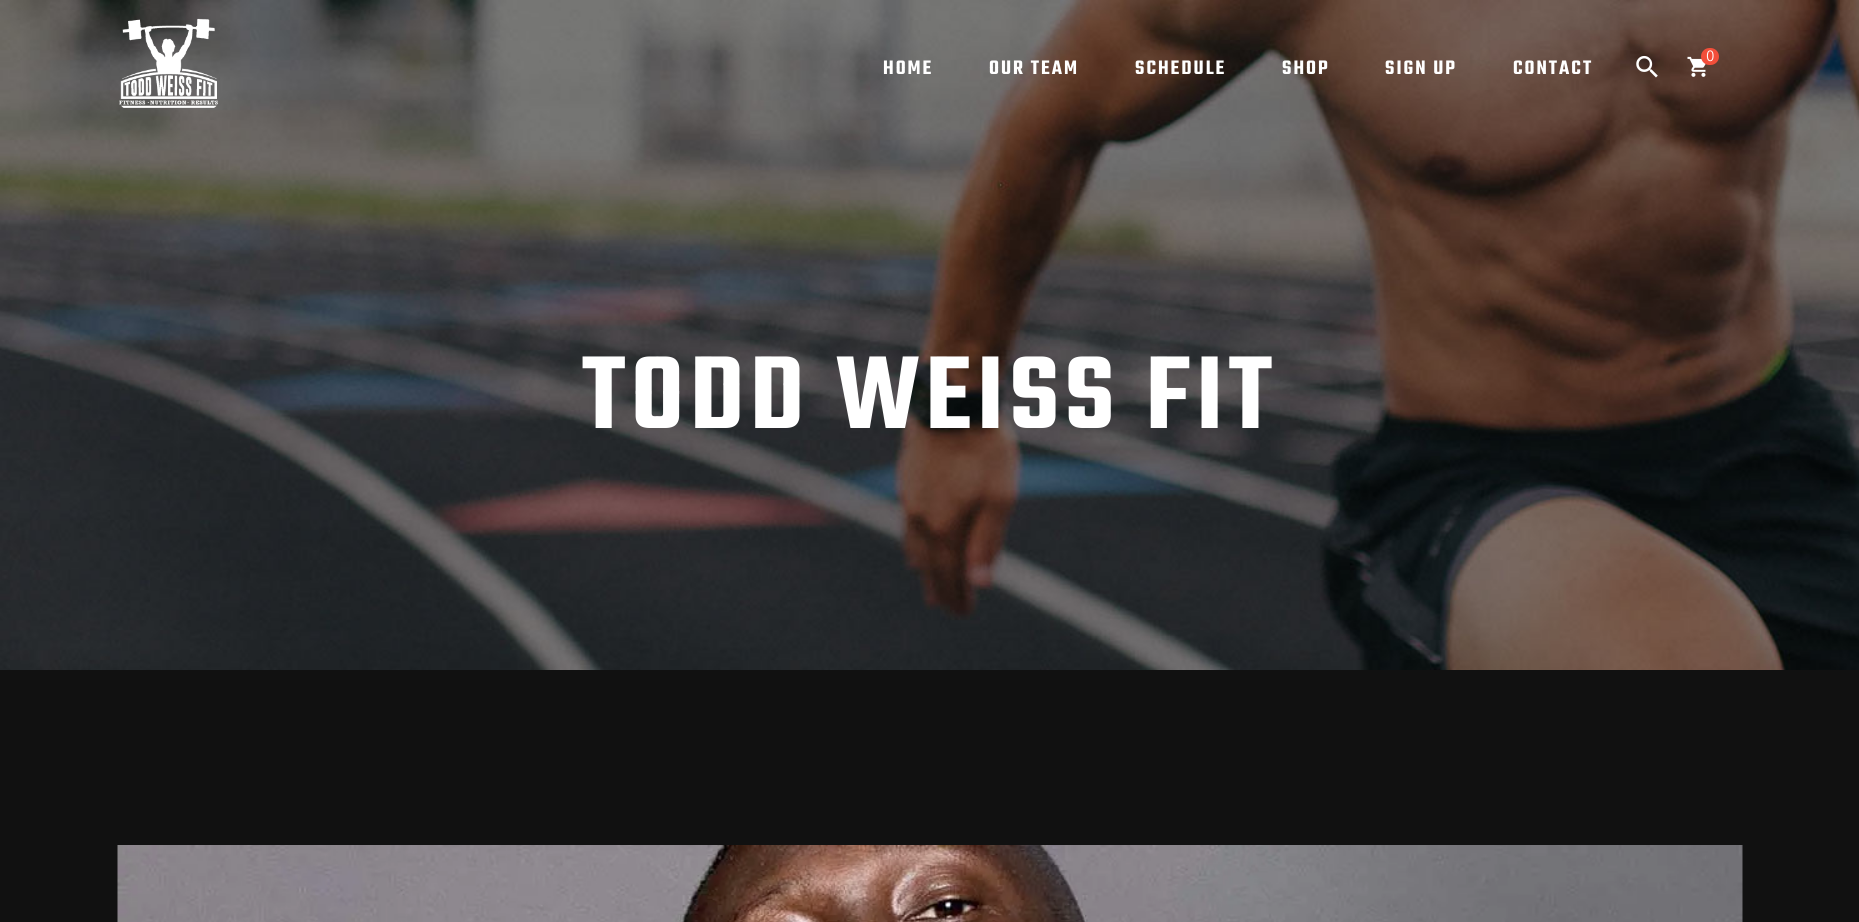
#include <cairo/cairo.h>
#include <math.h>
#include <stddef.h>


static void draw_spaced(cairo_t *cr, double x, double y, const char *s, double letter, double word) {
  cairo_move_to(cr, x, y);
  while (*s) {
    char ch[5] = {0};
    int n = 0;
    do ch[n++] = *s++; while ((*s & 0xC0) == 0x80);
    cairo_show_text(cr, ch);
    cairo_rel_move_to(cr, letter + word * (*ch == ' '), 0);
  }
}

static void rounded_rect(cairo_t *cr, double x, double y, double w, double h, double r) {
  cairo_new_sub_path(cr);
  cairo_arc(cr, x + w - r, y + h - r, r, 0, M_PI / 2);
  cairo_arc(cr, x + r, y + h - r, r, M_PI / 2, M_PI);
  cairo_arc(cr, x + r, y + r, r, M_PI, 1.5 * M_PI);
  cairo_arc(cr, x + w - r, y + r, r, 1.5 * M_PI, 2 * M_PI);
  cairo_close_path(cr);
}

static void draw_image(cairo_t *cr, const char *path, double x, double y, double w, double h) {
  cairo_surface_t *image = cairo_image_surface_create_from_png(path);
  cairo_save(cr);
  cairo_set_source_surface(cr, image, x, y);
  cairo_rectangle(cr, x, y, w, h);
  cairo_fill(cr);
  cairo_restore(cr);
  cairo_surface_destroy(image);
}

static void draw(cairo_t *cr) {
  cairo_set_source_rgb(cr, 17 / 255.0, 17 / 255.0, 17 / 255.0);
  cairo_paint(cr);
  draw_image(cr, "images/4.png", 0, 0, 1859, 670);
  draw_image(cr, "images/1.png", 119, 18, 99, 90);
  draw_image(cr, "images/2.png", 1636, 55, 22, 23);
  draw_image(cr, "images/3.png", 1687, 56, 19, 21);
  cairo_set_source_rgb(cr, 243 / 255.0, 78 / 255.0, 58 / 255.0);
  rounded_rect(cr, 1701, 48, 18, 17, 8.5);
  cairo_fill(cr);
  draw_image(cr, "images/5.png", 117, 845, 1626, 77);
  cairo_select_font_face(cr, "Teko SemiBold", CAIRO_FONT_SLANT_NORMAL, CAIRO_FONT_WEIGHT_NORMAL);
  cairo_set_font_size(cr, 21.25);
  cairo_set_source_rgb(cr, 1, 1, 1);
  draw_spaced(cr, 883, 74, "HOME", 2, 0);
  draw_spaced(cr, 989, 74, "OUR TEAM", 2, 0);
  draw_spaced(cr, 1135, 74, "SCHEDULE", 2, 0);
  draw_spaced(cr, 1282, 74, "SHOP", 2, 0);
  draw_spaced(cr, 1385, 74, "SIGN UP", 2, 0);
  draw_spaced(cr, 1513, 74, "CONTACT", 2, 0);
  cairo_select_font_face(cr, "Ubuntu Light", CAIRO_FONT_SLANT_NORMAL, CAIRO_FONT_WEIGHT_NORMAL);
  cairo_set_font_size(cr, 15);
  cairo_move_to(cr, 1706, 61);
  cairo_show_text(cr, "0");
  cairo_select_font_face(cr, "Teko SemiBold", CAIRO_FONT_SLANT_NORMAL, CAIRO_FONT_WEIGHT_NORMAL);
  cairo_set_font_size(cr, 112.5);
  draw_spaced(cr, 582, 428, "TODD WEISS FIT", 5.6, 0);
}

int main(void) {
  cairo_surface_t *surface = cairo_image_surface_create(CAIRO_FORMAT_RGB24, 1859, 922);
  cairo_t *cr = cairo_create(surface);
  cairo_font_options_t *options = cairo_font_options_create();
  cairo_font_options_set_hint_metrics(options, CAIRO_HINT_METRICS_OFF);
  cairo_font_options_set_hint_style(options, CAIRO_HINT_STYLE_NONE);
  cairo_set_font_options(cr, options);
  cairo_set_miter_limit(cr, 4);
  draw(cr);
  cairo_surface_write_to_png(surface, "out.png");
  cairo_font_options_destroy(options);
  cairo_destroy(cr);
  cairo_surface_destroy(surface);
  return 0;
}
